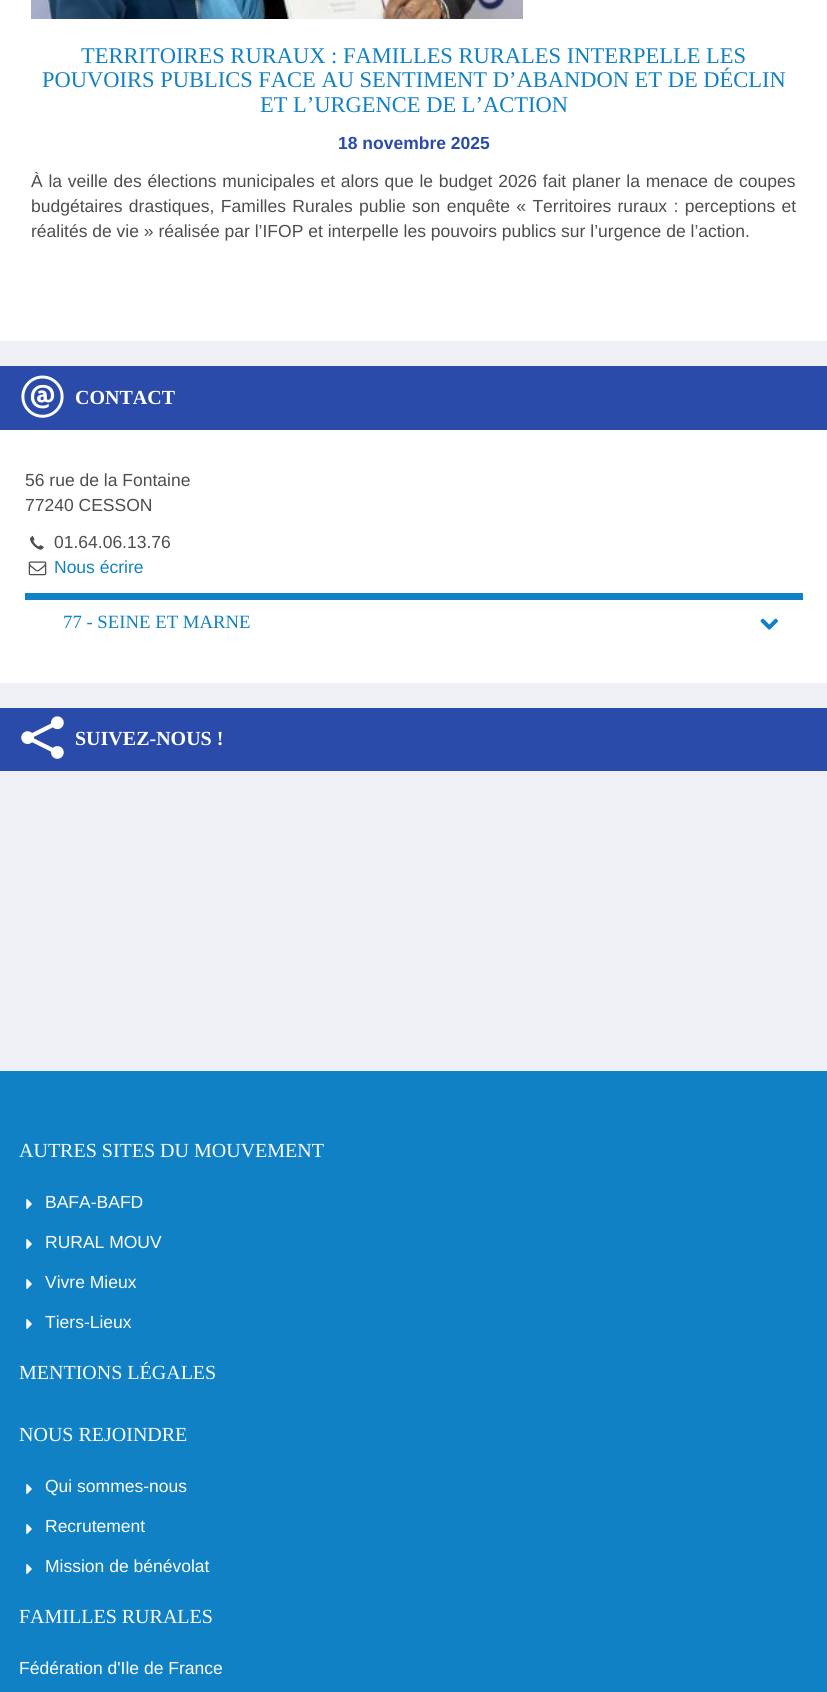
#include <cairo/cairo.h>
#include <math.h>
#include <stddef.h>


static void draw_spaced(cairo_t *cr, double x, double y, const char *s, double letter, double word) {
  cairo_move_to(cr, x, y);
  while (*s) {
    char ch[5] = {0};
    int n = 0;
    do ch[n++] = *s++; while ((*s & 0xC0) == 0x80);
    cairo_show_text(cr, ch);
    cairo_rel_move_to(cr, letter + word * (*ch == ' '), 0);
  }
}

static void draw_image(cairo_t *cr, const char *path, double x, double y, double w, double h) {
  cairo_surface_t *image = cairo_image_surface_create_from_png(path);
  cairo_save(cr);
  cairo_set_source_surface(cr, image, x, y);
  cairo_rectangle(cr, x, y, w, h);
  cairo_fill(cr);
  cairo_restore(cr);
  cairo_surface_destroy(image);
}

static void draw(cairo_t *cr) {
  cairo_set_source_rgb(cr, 238 / 255.0, 240 / 255.0, 245 / 255.0);
  cairo_paint(cr);
  cairo_set_source_rgb(cr, 1, 1, 1);
  cairo_rectangle(cr, 0, 0, 827, 341);
  cairo_fill(cr);
  draw_image(cr, "images/1.png", 31, 0, 492, 19);
  cairo_set_source_rgb(cr, 42 / 255.0, 75 / 255.0, 170 / 255.0);
  cairo_rectangle(cr, 0, 366, 827, 64);
  cairo_fill(cr);
  draw_image(cr, "images/2.png", 21, 375, 43, 43);
  cairo_set_source_rgb(cr, 1, 1, 1);
  cairo_rectangle(cr, 0, 430, 827, 253);
  cairo_fill(cr);
  draw_image(cr, "images/3.png", 30, 535, 14, 15);
  draw_image(cr, "images/4.png", 28, 561, 19, 15);
  cairo_set_source_rgb(cr, 16 / 255.0, 129 / 255.0, 197 / 255.0);
  cairo_rectangle(cr, 25, 593, 778, 7);
  cairo_fill(cr);
  draw_image(cr, "images/5.png", 760, 618, 18, 12);
  cairo_set_source_rgb(cr, 42 / 255.0, 75 / 255.0, 170 / 255.0);
  cairo_rectangle(cr, 0, 708, 827, 63);
  cairo_fill(cr);
  draw_image(cr, "images/6.png", 21, 716, 43, 43);
  cairo_set_source_rgb(cr, 16 / 255.0, 129 / 255.0, 197 / 255.0);
  cairo_rectangle(cr, 0, 1071, 827, 621);
  cairo_fill(cr);
  draw_image(cr, "images/7.png", 26, 1199, 6, 10);
  draw_image(cr, "images/7.png", 26, 1239, 6, 10);
  draw_image(cr, "images/7.png", 26, 1279, 6, 10);
  draw_image(cr, "images/7.png", 26, 1319, 6, 10);
  draw_image(cr, "images/7.png", 26, 1484, 6, 10);
  draw_image(cr, "images/7.png", 26, 1524, 6, 10);
  draw_image(cr, "images/7.png", 26, 1564, 6, 10);
  cairo_select_font_face(cr, "Liberation Serif", CAIRO_FONT_SLANT_NORMAL, CAIRO_FONT_WEIGHT_NORMAL);
  cairo_set_font_size(cr, 22.5);
  cairo_move_to(cr, 81, 63);
  cairo_show_text(cr, "TERRITOIRES RURAUX : FAMILLES RURALES INTERPELLE LES");
  cairo_move_to(cr, 42, 87);
  cairo_show_text(cr, "POUVOIRS PUBLICS FACE AU SENTIMENT D’ABANDON ET DE DÉCLIN");
  cairo_move_to(cr, 260, 112);
  cairo_show_text(cr, "ET L’URGENCE DE L’ACTION");
  cairo_select_font_face(cr, "Liberation Sans", CAIRO_FONT_SLANT_NORMAL, CAIRO_FONT_WEIGHT_BOLD);
  cairo_set_font_size(cr, 17.5);
  cairo_set_source_rgb(cr, 42 / 255.0, 75 / 255.0, 170 / 255.0);
  cairo_move_to(cr, 338, 149);
  cairo_show_text(cr, "18 novembre 2025");
  cairo_select_font_face(cr, "Liberation Sans", CAIRO_FONT_SLANT_NORMAL, CAIRO_FONT_WEIGHT_NORMAL);
  cairo_set_source_rgb(cr, 77 / 255.0, 77 / 255.0, 77 / 255.0);
  draw_spaced(cr, 31, 187, "À la veille des élections municipales et alors que le budget 2026 fait planer la menace de coupes", 0, 0.9);
  draw_spaced(cr, 31, 212, "budgétaires drastiques, Familles Rurales publie son enquête « Territoires ruraux : perceptions et", 0, 1.5);
  cairo_move_to(cr, 31, 237);
  cairo_show_text(cr, "réalités de vie » réalisée par l’IFOP et interpelle les pouvoirs publics sur l’urgence de l’action.");
  cairo_select_font_face(cr, "Liberation Serif", CAIRO_FONT_SLANT_NORMAL, CAIRO_FONT_WEIGHT_BOLD);
  cairo_set_font_size(cr, 20);
  cairo_set_source_rgb(cr, 1, 1, 1);
  cairo_move_to(cr, 75, 404);
  cairo_show_text(cr, "CONTACT");
  cairo_select_font_face(cr, "Liberation Sans", CAIRO_FONT_SLANT_NORMAL, CAIRO_FONT_WEIGHT_NORMAL);
  cairo_set_font_size(cr, 17.5);
  cairo_set_source_rgb(cr, 77 / 255.0, 77 / 255.0, 77 / 255.0);
  cairo_move_to(cr, 25, 486);
  cairo_show_text(cr, "56 rue de la Fontaine");
  cairo_move_to(cr, 25, 511);
  cairo_show_text(cr, "77240 CESSON");
  cairo_move_to(cr, 54, 548);
  cairo_show_text(cr, "01.64.06.13.76");
  cairo_set_source_rgb(cr, 16 / 255.0, 129 / 255.0, 197 / 255.0);
  cairo_move_to(cr, 54, 573);
  cairo_show_text(cr, "Nous écrire");
  cairo_select_font_face(cr, "Liberation Serif", CAIRO_FONT_SLANT_NORMAL, CAIRO_FONT_WEIGHT_NORMAL);
  cairo_set_font_size(cr, 18.75);
  cairo_move_to(cr, 63, 628);
  cairo_show_text(cr, "77 - SEINE ET MARNE");
  cairo_select_font_face(cr, "Liberation Serif", CAIRO_FONT_SLANT_NORMAL, CAIRO_FONT_WEIGHT_BOLD);
  cairo_set_font_size(cr, 20);
  cairo_set_source_rgb(cr, 1, 1, 1);
  cairo_move_to(cr, 75, 745);
  cairo_show_text(cr, "SUIVEZ-NOUS !");
  cairo_select_font_face(cr, "Liberation Serif", CAIRO_FONT_SLANT_NORMAL, CAIRO_FONT_WEIGHT_NORMAL);
  cairo_move_to(cr, 19, 1157);
  cairo_show_text(cr, "AUTRES SITES DU MOUVEMENT");
  cairo_select_font_face(cr, "Liberation Sans", CAIRO_FONT_SLANT_NORMAL, CAIRO_FONT_WEIGHT_NORMAL);
  cairo_set_font_size(cr, 17.5);
  cairo_move_to(cr, 45, 1208);
  cairo_show_text(cr, "BAFA-BAFD");
  cairo_move_to(cr, 45, 1248);
  cairo_show_text(cr, "RURAL MOUV");
  cairo_move_to(cr, 45, 1288);
  cairo_show_text(cr, "Vivre Mieux");
  cairo_move_to(cr, 45, 1328);
  cairo_show_text(cr, "Tiers-Lieux");
  cairo_select_font_face(cr, "Liberation Serif", CAIRO_FONT_SLANT_NORMAL, CAIRO_FONT_WEIGHT_NORMAL);
  cairo_set_font_size(cr, 20);
  cairo_move_to(cr, 19, 1379);
  cairo_show_text(cr, "MENTIONS LÉGALES");
  cairo_move_to(cr, 19, 1441);
  cairo_show_text(cr, "NOUS REJOINDRE");
  cairo_select_font_face(cr, "Liberation Sans", CAIRO_FONT_SLANT_NORMAL, CAIRO_FONT_WEIGHT_NORMAL);
  cairo_set_font_size(cr, 17.5);
  cairo_move_to(cr, 45, 1492);
  cairo_show_text(cr, "Qui sommes-nous");
  cairo_move_to(cr, 45, 1532);
  cairo_show_text(cr, "Recrutement");
  cairo_move_to(cr, 45, 1572);
  cairo_show_text(cr, "Mission de bénévolat");
  cairo_select_font_face(cr, "Liberation Serif", CAIRO_FONT_SLANT_NORMAL, CAIRO_FONT_WEIGHT_NORMAL);
  cairo_set_font_size(cr, 20);
  cairo_move_to(cr, 19, 1623);
  cairo_show_text(cr, "FAMILLES RURALES");
  cairo_select_font_face(cr, "Liberation Sans", CAIRO_FONT_SLANT_NORMAL, CAIRO_FONT_WEIGHT_NORMAL);
  cairo_set_font_size(cr, 17.5);
  cairo_move_to(cr, 19, 1674);
  cairo_show_text(cr, "Fédération d'Ile de France");
}

int main(void) {
  cairo_surface_t *surface = cairo_image_surface_create(CAIRO_FORMAT_RGB24, 827, 1692);
  cairo_t *cr = cairo_create(surface);
  cairo_font_options_t *options = cairo_font_options_create();
  cairo_font_options_set_hint_metrics(options, CAIRO_HINT_METRICS_OFF);
  cairo_font_options_set_hint_style(options, CAIRO_HINT_STYLE_NONE);
  cairo_set_font_options(cr, options);
  cairo_set_miter_limit(cr, 4);
  draw(cr);
  cairo_surface_write_to_png(surface, "out.png");
  cairo_font_options_destroy(options);
  cairo_destroy(cr);
  cairo_surface_destroy(surface);
  return 0;
}
